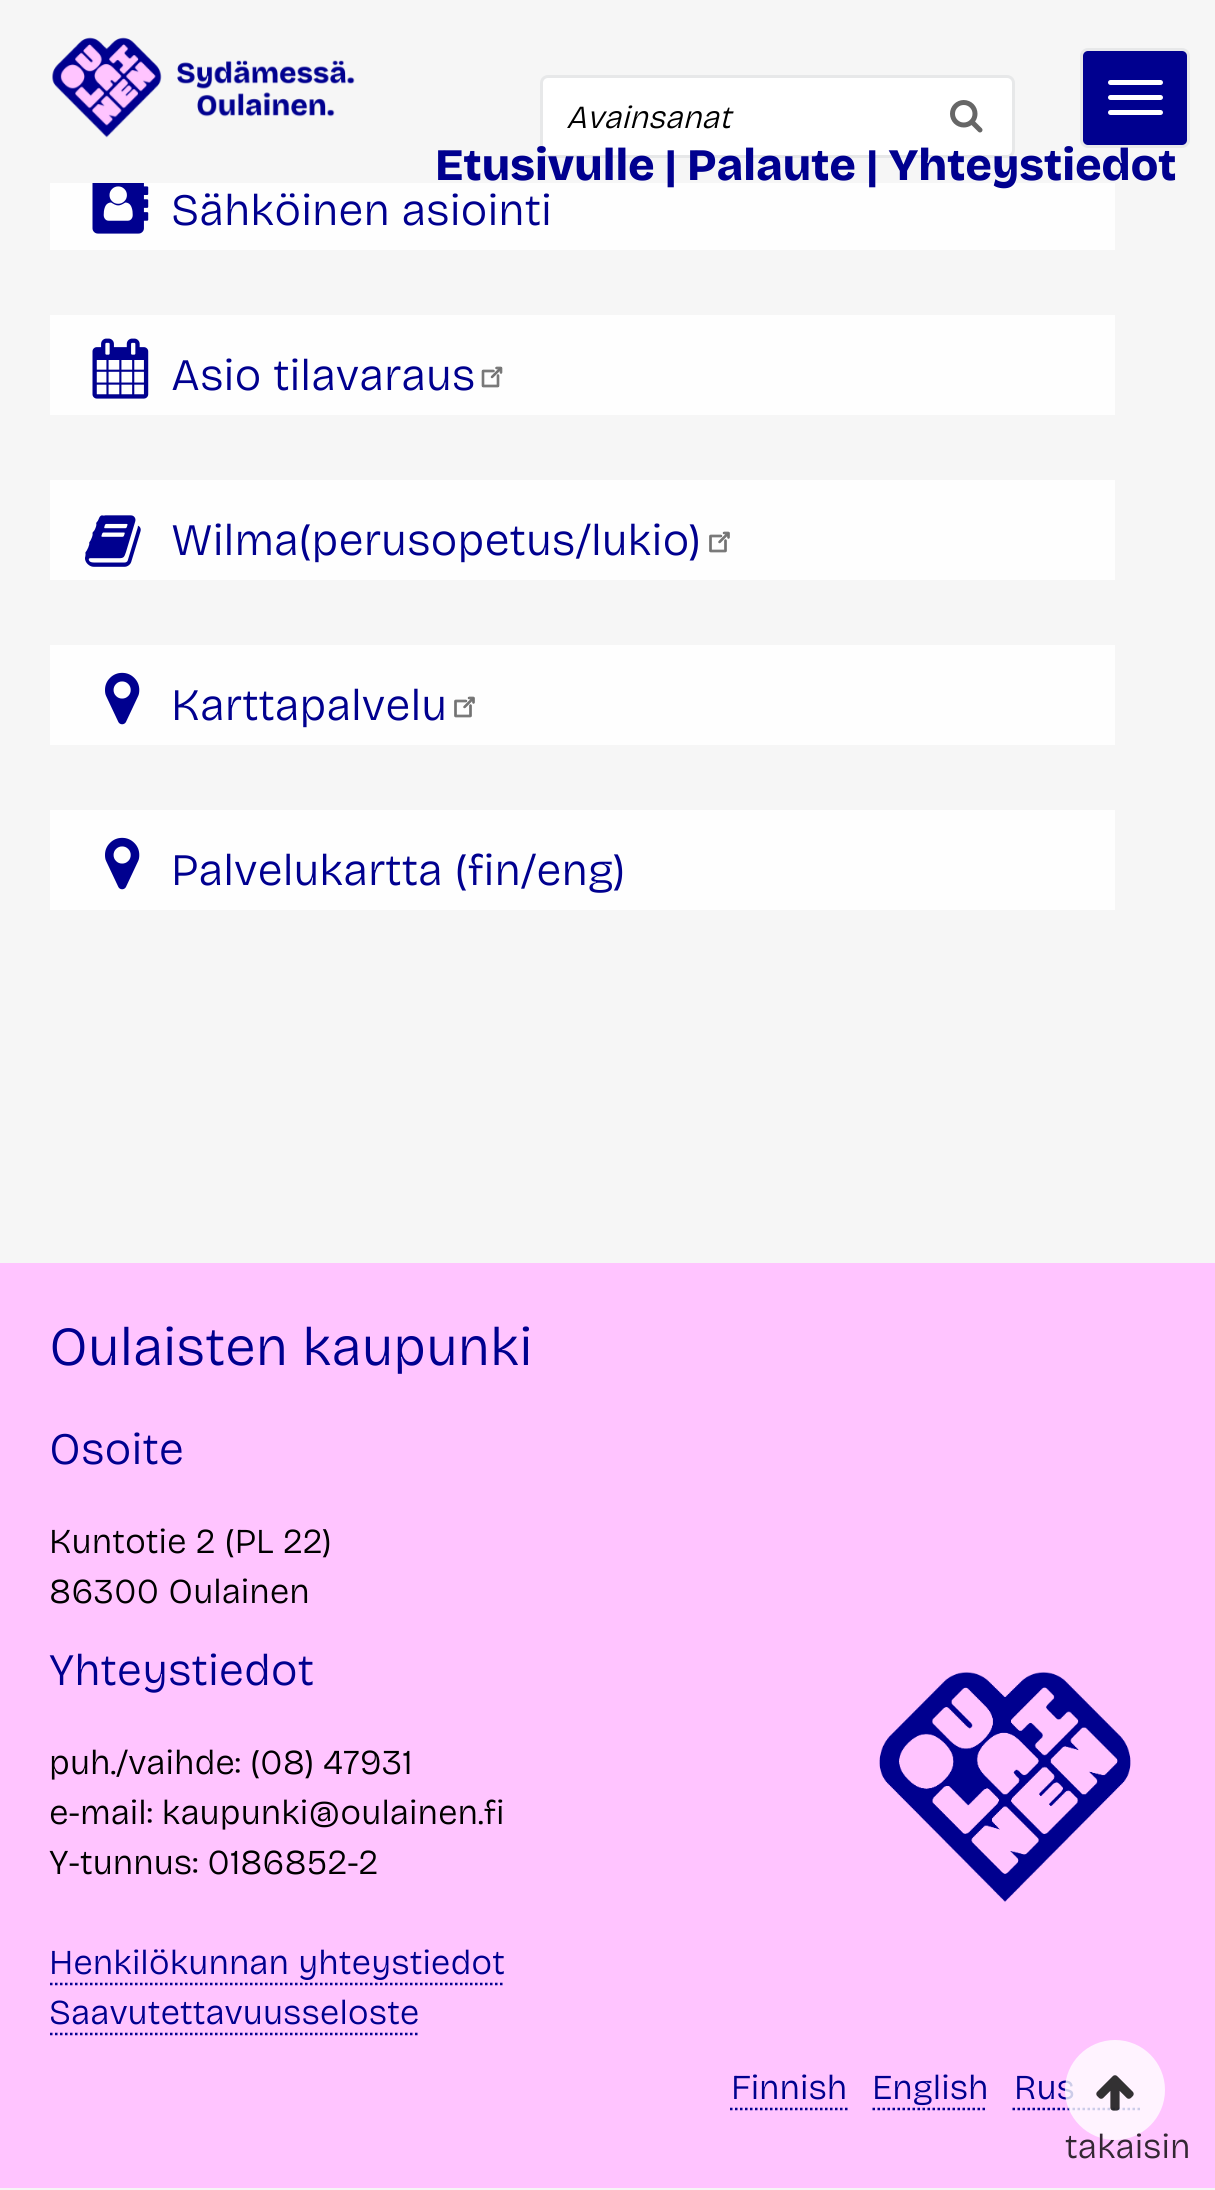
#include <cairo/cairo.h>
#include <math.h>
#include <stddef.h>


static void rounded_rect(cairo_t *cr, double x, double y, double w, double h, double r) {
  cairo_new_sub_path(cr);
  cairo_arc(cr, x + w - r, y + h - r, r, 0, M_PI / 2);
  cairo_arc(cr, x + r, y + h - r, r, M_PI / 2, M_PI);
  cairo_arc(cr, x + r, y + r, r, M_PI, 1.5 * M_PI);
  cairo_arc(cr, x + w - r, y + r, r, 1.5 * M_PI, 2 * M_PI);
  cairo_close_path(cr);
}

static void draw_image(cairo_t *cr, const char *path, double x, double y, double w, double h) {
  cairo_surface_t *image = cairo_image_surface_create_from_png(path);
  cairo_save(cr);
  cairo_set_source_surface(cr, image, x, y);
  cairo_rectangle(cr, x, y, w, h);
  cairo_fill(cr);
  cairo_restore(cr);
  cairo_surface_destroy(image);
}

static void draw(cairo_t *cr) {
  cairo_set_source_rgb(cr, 246 / 255.0, 246 / 255.0, 246 / 255.0);
  cairo_paint(cr);
  cairo_set_source_rgb(cr, 0, 0, 143 / 255.0);
  rounded_rect(cr, 1081.5, 49.5, 107, 97, 6.5);
  cairo_fill_preserve(cr);
  cairo_set_source_rgb(cr, 231 / 255.0, 232 / 255.0, 233 / 255.0);
  cairo_set_line_width(cr, 3);
  cairo_stroke(cr);
  cairo_set_source_rgb(cr, 1, 1, 1);
  rounded_rect(cr, 1108, 80, 55, 5, 2.5);
  cairo_fill(cr);
  rounded_rect(cr, 1108, 95, 55, 5, 2.5);
  cairo_fill(cr);
  rounded_rect(cr, 1108, 110, 55, 5, 2.5);
  cairo_fill(cr);
  draw_image(cr, "images/1.png", 52, 37, 303, 101);
  rounded_rect(cr, 541.5, 76.5, 472, 80, 6.5);
  cairo_fill_preserve(cr);
  cairo_set_source_rgb(cr, 231 / 255.0, 232 / 255.0, 233 / 255.0);
  cairo_stroke(cr);
  draw_image(cr, "images/2.png", 950, 100, 33, 33);
  cairo_set_source_rgb(cr, 254 / 255.0, 254 / 255.0, 254 / 255.0);
  cairo_rectangle(cr, 50, 183, 1065, 67);
  cairo_fill(cr);
  draw_image(cr, "images/3.png", 92, 183, 57, 51);
  cairo_rectangle(cr, 50, 315, 1065, 100);
  cairo_fill(cr);
  draw_image(cr, "images/4.png", 92, 338, 57, 61);
  draw_image(cr, "images/5.png", 481, 366, 22, 22);
  cairo_rectangle(cr, 50, 480, 1065, 100);
  cairo_fill(cr);
  draw_image(cr, "images/6.png", 85, 515, 56, 52);
  draw_image(cr, "images/7.png", 709, 531, 21, 22);
  cairo_rectangle(cr, 50, 645, 1065, 100);
  cairo_fill(cr);
  draw_image(cr, "images/8.png", 105, 672, 35, 53);
  draw_image(cr, "images/7.png", 454, 696, 21, 22);
  cairo_rectangle(cr, 50, 810, 1065, 100);
  cairo_fill(cr);
  draw_image(cr, "images/8.png", 105, 837, 35, 53);
  cairo_set_source_rgb(cr, 1, 196 / 255.0, 1);
  cairo_rectangle(cr, 0, 1263, 1215, 925);
  cairo_fill(cr);
  draw_image(cr, "images/9.png", 879, 1672, 252, 230);
  cairo_new_path(cr);
  cairo_move_to(cr, 50, 1984);
  cairo_line_to(cr, 505, 1984);
  cairo_set_source_rgb(cr, 0, 0, 143 / 255.0);
  cairo_set_line_width(cr, 2.5);
  cairo_set_dash(cr, (double[]){2.5, 2.5}, 2, 0);
  cairo_stroke(cr);
  cairo_new_path(cr);
  cairo_move_to(cr, 50, 2034);
  cairo_line_to(cr, 420, 2034);
  cairo_stroke(cr);
  cairo_new_path(cr);
  cairo_move_to(cr, 730, 2109);
  cairo_line_to(cr, 847.5, 2109);
  cairo_stroke(cr);
  cairo_new_path(cr);
  cairo_move_to(cr, 872.5, 2109);
  cairo_line_to(cr, 987.5, 2109);
  cairo_stroke(cr);
  cairo_new_path(cr);
  cairo_move_to(cr, 1012.5, 2109);
  cairo_line_to(cr, 1140, 2109);
  cairo_stroke(cr);
  cairo_select_font_face(cr, "Bricolage Grotesque Light", CAIRO_FONT_SLANT_ITALIC, CAIRO_FONT_WEIGHT_NORMAL);
  cairo_set_font_size(cr, 32.25);
  cairo_set_source_rgb(cr, 0, 0, 0);
  cairo_move_to(cr, 566, 128);
  cairo_show_text(cr, "Avainsanat");
  cairo_select_font_face(cr, "Bricolage Grotesque ExtraBold", CAIRO_FONT_SLANT_NORMAL, CAIRO_FONT_WEIGHT_NORMAL);
  cairo_set_font_size(cr, 45);
  cairo_set_source_rgb(cr, 0, 0, 143 / 255.0);
  cairo_move_to(cr, 435, 180);
  cairo_show_text(cr, "Etusivulle | Palaute | Yhteystiedot");
  cairo_select_font_face(cr, "Bricolage Grotesque Light", CAIRO_FONT_SLANT_NORMAL, CAIRO_FONT_WEIGHT_NORMAL);
  cairo_move_to(cr, 171, 225);
  cairo_show_text(cr, "Sähköinen asiointi");
  cairo_move_to(cr, 171, 390);
  cairo_show_text(cr, "Asio tilavaraus");
  cairo_move_to(cr, 171, 555);
  cairo_show_text(cr, "Wilma(perusopetus/lukio)");
  cairo_move_to(cr, 171, 720);
  cairo_show_text(cr, "Karttapalvelu");
  cairo_move_to(cr, 171, 885);
  cairo_show_text(cr, "Palvelukartta (fin/eng)");
  cairo_set_font_size(cr, 55);
  cairo_move_to(cr, 49, 1365);
  cairo_show_text(cr, "Oulaisten kaupunki");
  cairo_set_font_size(cr, 45);
  cairo_move_to(cr, 49, 1464);
  cairo_show_text(cr, "Osoite");
  cairo_set_font_size(cr, 35);
  cairo_set_source_rgb(cr, 0, 0, 0);
  cairo_move_to(cr, 49, 1553);
  cairo_show_text(cr, "Kuntotie 2 (PL 22)");
  cairo_move_to(cr, 49, 1603);
  cairo_show_text(cr, "86300 Oulainen");
  cairo_set_font_size(cr, 45);
  cairo_set_source_rgb(cr, 0, 0, 143 / 255.0);
  cairo_move_to(cr, 49, 1685);
  cairo_show_text(cr, "Yhteystiedot");
  cairo_set_font_size(cr, 35);
  cairo_set_source_rgb(cr, 0, 0, 0);
  cairo_move_to(cr, 49, 1774);
  cairo_show_text(cr, "puh./vaihde: (08) 47931");
  cairo_move_to(cr, 49, 1824);
  cairo_show_text(cr, "e-mail: kaupunki@oulainen.fi");
  cairo_move_to(cr, 49, 1874);
  cairo_show_text(cr, "Y-tunnus: 0186852-2");
  cairo_set_source_rgb(cr, 0, 0, 143 / 255.0);
  cairo_move_to(cr, 49, 1974);
  cairo_show_text(cr, "Henkilökunnan yhteystiedot");
  cairo_move_to(cr, 49, 2024);
  cairo_show_text(cr, "Saavutettavuusseloste");
  cairo_move_to(cr, 731, 2099);
  cairo_show_text(cr, "Finnish");
  cairo_move_to(cr, 872, 2099);
  cairo_show_text(cr, "English");
  cairo_move_to(cr, 1014, 2099);
  cairo_show_text(cr, "Rus");
  cairo_set_source_rgba(cr, 1, 1, 1, 0.8);
  cairo_new_path(cr);
  cairo_arc(cr, 1115, 2090, 50, 0, 2 * M_PI);
  cairo_fill(cr);
  draw_image(cr, "images/10.png", 1096, 2075, 38, 36);
  cairo_set_source_rgb(cr, 51 / 255.0, 39 / 255.0, 51 / 255.0);
  cairo_move_to(cr, 1065, 2158);
  cairo_show_text(cr, "takaisin");
}

int main(void) {
  cairo_surface_t *surface = cairo_image_surface_create(CAIRO_FORMAT_RGB24, 1215, 2190);
  cairo_t *cr = cairo_create(surface);
  cairo_font_options_t *options = cairo_font_options_create();
  cairo_font_options_set_hint_metrics(options, CAIRO_HINT_METRICS_OFF);
  cairo_font_options_set_hint_style(options, CAIRO_HINT_STYLE_NONE);
  cairo_set_font_options(cr, options);
  cairo_set_miter_limit(cr, 4);
  draw(cr);
  cairo_surface_write_to_png(surface, "out.png");
  cairo_font_options_destroy(options);
  cairo_destroy(cr);
  cairo_surface_destroy(surface);
  return 0;
}
